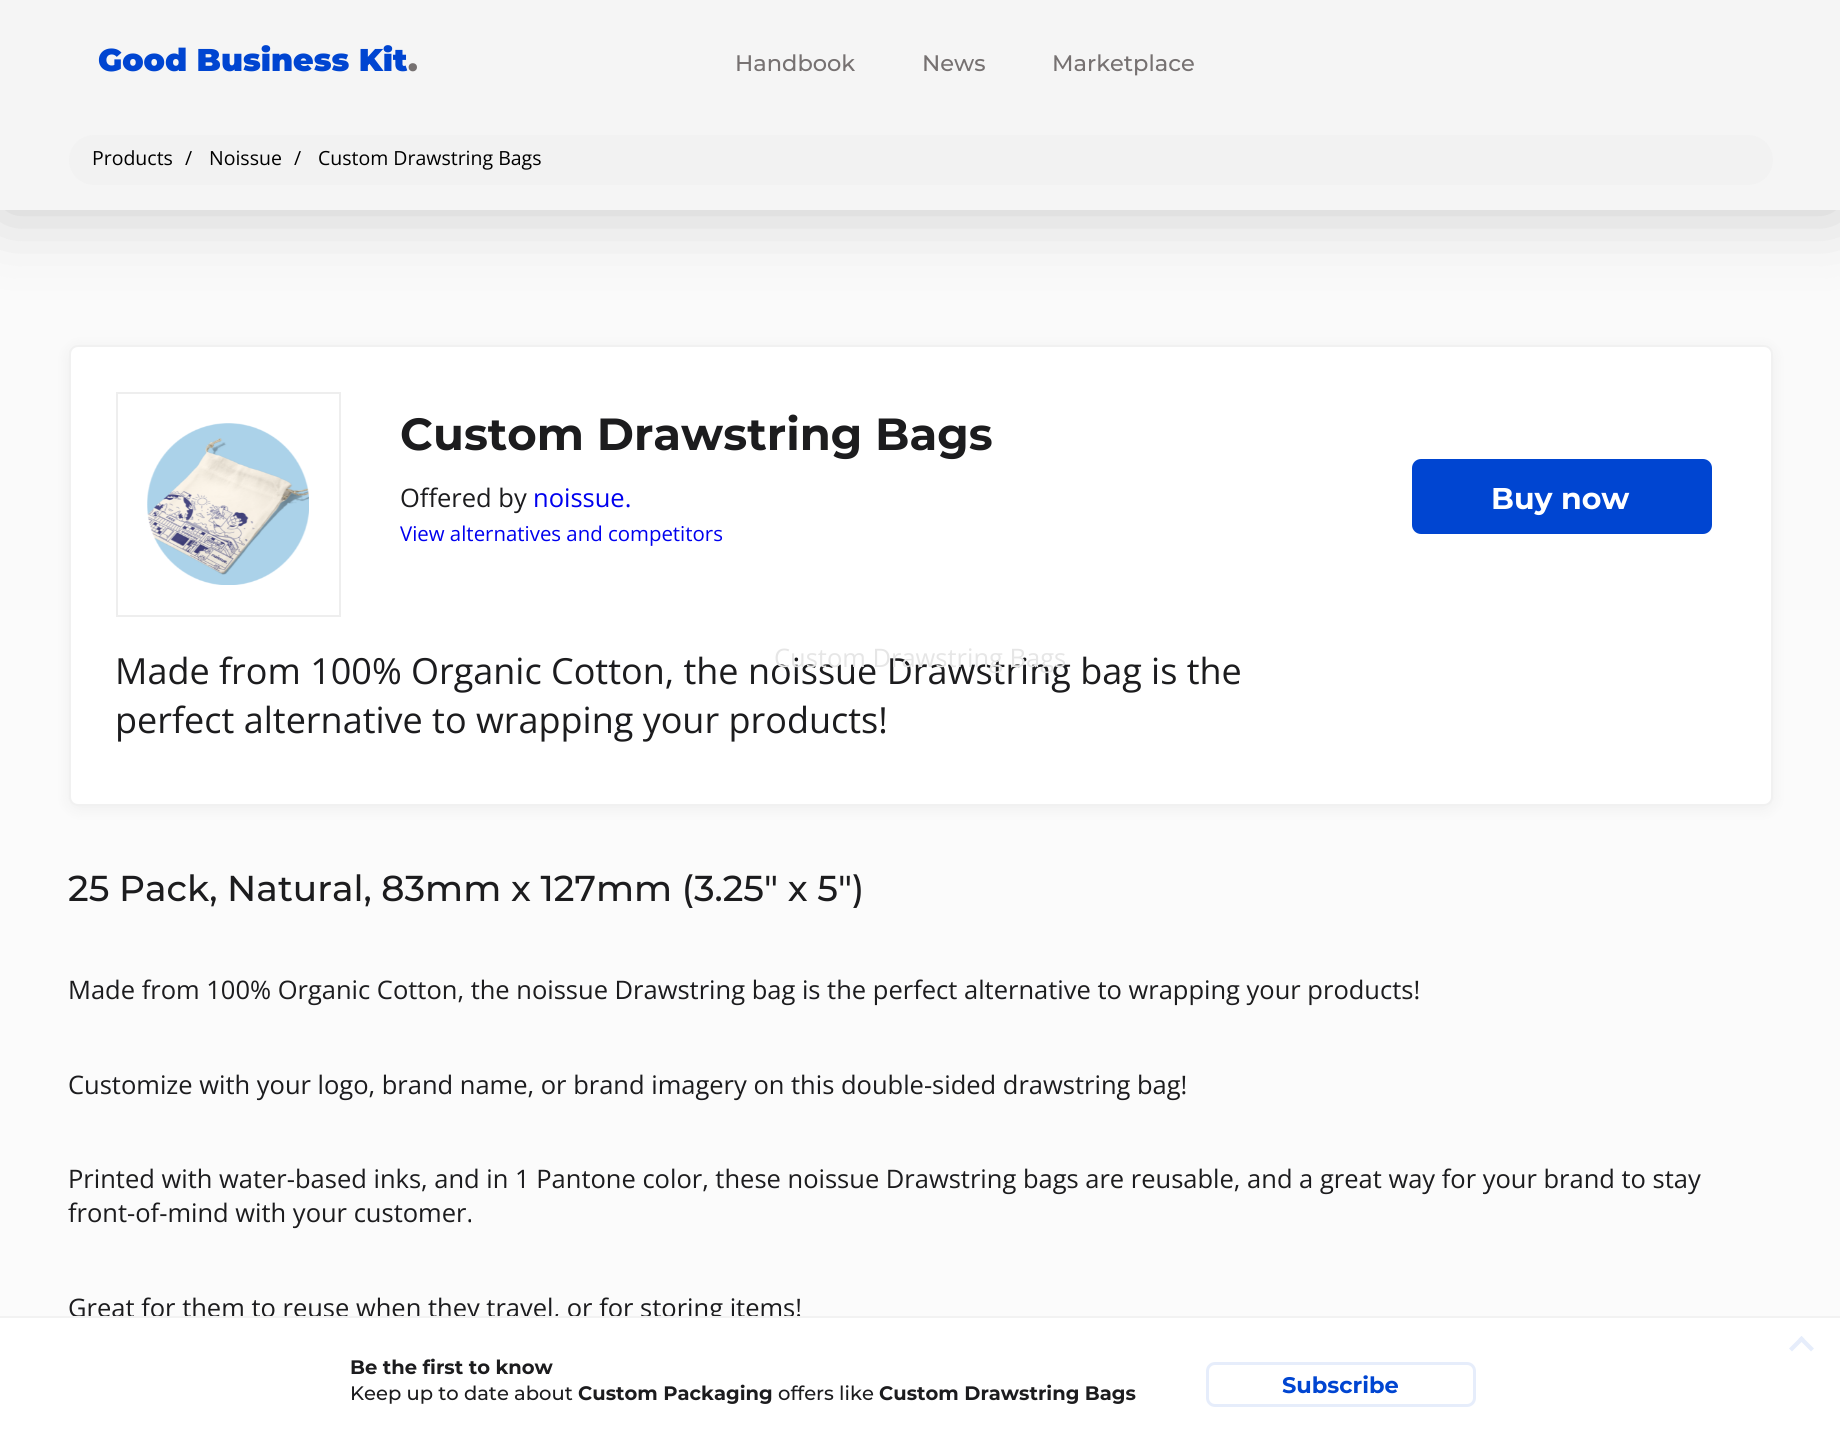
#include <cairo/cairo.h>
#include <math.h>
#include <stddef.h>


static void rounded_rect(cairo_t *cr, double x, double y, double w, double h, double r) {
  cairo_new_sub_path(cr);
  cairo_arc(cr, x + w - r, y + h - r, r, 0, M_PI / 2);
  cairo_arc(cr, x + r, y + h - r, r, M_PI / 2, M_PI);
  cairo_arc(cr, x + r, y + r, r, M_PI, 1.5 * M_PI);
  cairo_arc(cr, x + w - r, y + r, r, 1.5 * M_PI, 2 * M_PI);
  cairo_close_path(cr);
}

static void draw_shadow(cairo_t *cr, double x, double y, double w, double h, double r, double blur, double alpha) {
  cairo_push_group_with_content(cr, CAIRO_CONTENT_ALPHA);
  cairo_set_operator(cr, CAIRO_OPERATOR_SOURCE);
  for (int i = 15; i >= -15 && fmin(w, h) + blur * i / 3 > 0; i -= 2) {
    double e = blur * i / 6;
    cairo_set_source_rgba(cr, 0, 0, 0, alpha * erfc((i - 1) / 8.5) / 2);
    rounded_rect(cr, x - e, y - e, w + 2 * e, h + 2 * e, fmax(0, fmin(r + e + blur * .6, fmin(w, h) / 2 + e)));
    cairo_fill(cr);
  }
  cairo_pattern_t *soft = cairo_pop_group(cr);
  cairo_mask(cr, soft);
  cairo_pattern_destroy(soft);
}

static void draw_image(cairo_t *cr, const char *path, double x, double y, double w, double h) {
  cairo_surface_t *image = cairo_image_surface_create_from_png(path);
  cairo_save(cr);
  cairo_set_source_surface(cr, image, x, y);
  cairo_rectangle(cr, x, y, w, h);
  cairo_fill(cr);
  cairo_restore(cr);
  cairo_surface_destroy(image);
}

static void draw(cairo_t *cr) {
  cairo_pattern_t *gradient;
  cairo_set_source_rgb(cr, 1, 1, 1);
  cairo_paint(cr);
  gradient = cairo_pattern_create_linear(920, 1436, 920, 0);
  cairo_pattern_add_color_stop_rgba(gradient, 0.15, 251 / 255.0, 251 / 255.0, 251 / 255.0, 1);
  cairo_pattern_add_color_stop_rgba(gradient, 1, 250 / 255.0, 250 / 255.0, 250 / 255.0, 1);
  cairo_set_source(cr, gradient);
  cairo_pattern_destroy(gradient);
  cairo_rectangle(cr, 0, 210, 1840, 1106);
  cairo_fill(cr);
  cairo_set_source_rgb(cr, 0, 0, 0);
  draw_shadow(cr, 0, 0, 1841, 210, 0, 37.5, 0.2);
  cairo_set_source_rgb(cr, 245 / 255.0, 245 / 255.0, 245 / 255.0);
  cairo_rectangle(cr, 0, 0, 1840, 210);
  cairo_fill(cr);
  cairo_set_source_rgb(cr, 242 / 255.0, 242 / 255.0, 242 / 255.0);
  rounded_rect(cr, 69, 135, 1704, 50, 25);
  cairo_fill(cr);
  cairo_set_source_rgb(cr, 0, 0, 0);
  draw_shadow(cr, 69, 348, 1704, 461, 9, 7.5, 0.05);
  cairo_set_source_rgb(cr, 1, 1, 1);
  rounded_rect(cr, 70, 346, 1702, 459, 8);
  cairo_fill_preserve(cr);
  cairo_set_source_rgb(cr, 241 / 255.0, 241 / 255.0, 241 / 255.0);
  cairo_stroke(cr);
  cairo_rectangle(cr, 117, 393, 223, 223);
  cairo_set_source_rgb(cr, 238 / 255.0, 238 / 255.0, 238 / 255.0);
  cairo_stroke(cr);
  draw_image(cr, "images/1.png", 147, 423, 162, 162);
  cairo_set_source_rgb(cr, 0, 69 / 255.0, 209 / 255.0);
  rounded_rect(cr, 1412, 459, 300, 75, 9);
  cairo_fill(cr);
  cairo_set_source_rgb(cr, 230 / 255.0, 237 / 255.0, 251 / 255.0);
  cairo_new_path(cr);
  cairo_move_to(cr, 1789, 1348.5);
  cairo_line_to(cr, 1801.5, 1336);
  cairo_line_to(cr, 1804.5, 1339);
  cairo_line_to(cr, 1792, 1351.5);
  cairo_close_path(cr);
  cairo_fill(cr);
  cairo_new_path(cr);
  cairo_move_to(cr, 1798.5, 1339);
  cairo_line_to(cr, 1801.5, 1336);
  cairo_line_to(cr, 1814, 1348.5);
  cairo_line_to(cr, 1811, 1351.5);
  cairo_close_path(cr);
  cairo_fill(cr);
  rounded_rect(cr, 1207.5, 1363.5, 267, 42, 7.5);
  cairo_set_line_width(cr, 3);
  cairo_stroke(cr);
  cairo_select_font_face(cr, "Montserrat Black", CAIRO_FONT_SLANT_NORMAL, CAIRO_FONT_WEIGHT_NORMAL);
  cairo_set_font_size(cr, 31.5);
  cairo_set_source_rgb(cr, 0, 69 / 255.0, 209 / 255.0);
  cairo_move_to(cr, 98, 71);
  cairo_show_text(cr, "Good Business Kit");
  cairo_set_source_rgb(cr, 118 / 255.0, 113 / 255.0, 113 / 255.0);
  cairo_move_to(cr, 408, 71);
  cairo_show_text(cr, ".");
  cairo_select_font_face(cr, "Montserrat Medium", CAIRO_FONT_SLANT_NORMAL, CAIRO_FONT_WEIGHT_NORMAL);
  cairo_set_font_size(cr, 22.5);
  cairo_move_to(cr, 735, 71);
  cairo_show_text(cr, "Handbook");
  cairo_move_to(cr, 922, 71);
  cairo_show_text(cr, "News");
  cairo_move_to(cr, 1052, 71);
  cairo_show_text(cr, "Marketplace");
  cairo_select_font_face(cr, "Open Sans", CAIRO_FONT_SLANT_NORMAL, CAIRO_FONT_WEIGHT_NORMAL);
  cairo_set_font_size(cr, 19.5);
  cairo_set_source_rgb(cr, 0, 0, 0);
  cairo_move_to(cr, 92, 165);
  cairo_show_text(cr, "Products");
  cairo_move_to(cr, 185, 165);
  cairo_show_text(cr, "/");
  cairo_move_to(cr, 209, 165);
  cairo_show_text(cr, "Noissue");
  cairo_move_to(cr, 294, 165);
  cairo_show_text(cr, "/");
  cairo_move_to(cr, 318, 165);
  cairo_show_text(cr, "Custom Drawstring Bags");
  cairo_select_font_face(cr, "Montserrat", CAIRO_FONT_SLANT_NORMAL, CAIRO_FONT_WEIGHT_BOLD);
  cairo_set_font_size(cr, 45);
  cairo_set_source_rgb(cr, 28 / 255.0, 28 / 255.0, 30 / 255.0);
  cairo_move_to(cr, 400, 450);
  cairo_show_text(cr, "Custom Drawstring Bags");
  cairo_select_font_face(cr, "Open Sans", CAIRO_FONT_SLANT_NORMAL, CAIRO_FONT_WEIGHT_NORMAL);
  cairo_set_font_size(cr, 25.5);
  cairo_move_to(cr, 400, 507);
  cairo_show_text(cr, "Offered by");
  cairo_set_source_rgb(cr, 0, 0, 238 / 255.0);
  cairo_move_to(cr, 533, 507);
  cairo_show_text(cr, "noissue.");
  cairo_set_font_size(cr, 20.4);
  cairo_move_to(cr, 400, 541);
  cairo_show_text(cr, "View alternatives and competitors");
  cairo_set_font_size(cr, 36);
  cairo_set_source_rgb(cr, 28 / 255.0, 28 / 255.0, 30 / 255.0);
  cairo_move_to(cr, 115, 684);
  cairo_show_text(cr, "Made from 100% Organic Cotton, the noissue Drawstring bag is the");
  cairo_move_to(cr, 115, 733);
  cairo_show_text(cr, "perfect alternative to wrapping your products!");
  cairo_select_font_face(cr, "Montserrat", CAIRO_FONT_SLANT_NORMAL, CAIRO_FONT_WEIGHT_BOLD);
  cairo_set_font_size(cr, 30);
  cairo_set_source_rgb(cr, 1, 1, 1);
  cairo_move_to(cr, 1491, 509);
  cairo_show_text(cr, "Buy now");
  cairo_select_font_face(cr, "Open Sans", CAIRO_FONT_SLANT_NORMAL, CAIRO_FONT_WEIGHT_NORMAL);
  cairo_set_font_size(cr, 25.5);
  cairo_set_source_rgb(cr, 230 / 255.0, 230 / 255.0, 230 / 255.0);
  cairo_move_to(cr, 774, 667);
  cairo_show_text(cr, "Custom Drawstring Bags");
  cairo_select_font_face(cr, "Montserrat Medium", CAIRO_FONT_SLANT_NORMAL, CAIRO_FONT_WEIGHT_NORMAL);
  cairo_set_font_size(cr, 36);
  cairo_set_source_rgb(cr, 28 / 255.0, 28 / 255.0, 30 / 255.0);
  cairo_move_to(cr, 68, 901);
  cairo_show_text(cr, "25 Pack, Natural, 83mm x 127mm (3.25\" x 5\")");
  cairo_select_font_face(cr, "Open Sans", CAIRO_FONT_SLANT_NORMAL, CAIRO_FONT_WEIGHT_NORMAL);
  cairo_set_font_size(cr, 25.5);
  cairo_move_to(cr, 68, 999);
  cairo_show_text(cr, "Made from 100% Organic Cotton, the noissue Drawstring bag is the perfect alternative to wrapping your products!");
  cairo_move_to(cr, 68, 1094);
  cairo_show_text(cr, "Customize with your logo, brand name, or brand imagery on this double-sided drawstring bag!");
  cairo_move_to(cr, 68, 1188);
  cairo_show_text(cr, "Printed with water-based inks, and in 1 Pantone color, these noissue Drawstring bags are reusable, and a great way for your brand to stay");
  cairo_move_to(cr, 68, 1222);
  cairo_show_text(cr, "front-of-mind with your customer.");
  cairo_move_to(cr, 68, 1317);
  cairo_show_text(cr, "Great for them to reuse when they travel, or for storing items!");
  cairo_set_source_rgb(cr, 1, 1, 1);
  cairo_rectangle(cr, 467, 1318, 256, 6);
  cairo_fill(cr);
  cairo_set_source_rgb(cr, 242 / 255.0, 242 / 255.0, 242 / 255.0);
  cairo_rectangle(cr, 0, 1316, 1840, 2);
  cairo_fill(cr);
  cairo_select_font_face(cr, "Montserrat", CAIRO_FONT_SLANT_NORMAL, CAIRO_FONT_WEIGHT_BOLD);
  cairo_set_font_size(cr, 19.5);
  cairo_set_source_rgb(cr, 28 / 255.0, 28 / 255.0, 30 / 255.0);
  cairo_move_to(cr, 350, 1374);
  cairo_show_text(cr, "Be the first to know");
  cairo_select_font_face(cr, "Montserrat Medium", CAIRO_FONT_SLANT_NORMAL, CAIRO_FONT_WEIGHT_NORMAL);
  cairo_move_to(cr, 350, 1400);
  cairo_show_text(cr, "Keep up to date about");
  cairo_select_font_face(cr, "Montserrat", CAIRO_FONT_SLANT_NORMAL, CAIRO_FONT_WEIGHT_BOLD);
  cairo_move_to(cr, 578, 1400);
  cairo_show_text(cr, "Custom Packaging");
  cairo_select_font_face(cr, "Montserrat Medium", CAIRO_FONT_SLANT_NORMAL, CAIRO_FONT_WEIGHT_NORMAL);
  cairo_move_to(cr, 778, 1400);
  cairo_show_text(cr, "offers like");
  cairo_select_font_face(cr, "Montserrat", CAIRO_FONT_SLANT_NORMAL, CAIRO_FONT_WEIGHT_BOLD);
  cairo_move_to(cr, 879, 1400);
  cairo_show_text(cr, "Custom Drawstring Bags");
  cairo_set_font_size(cr, 22.5);
  cairo_set_source_rgb(cr, 0, 69 / 255.0, 209 / 255.0);
  cairo_move_to(cr, 1282, 1393);
  cairo_show_text(cr, "Subscribe");
}

int main(void) {
  cairo_surface_t *surface = cairo_image_surface_create(CAIRO_FORMAT_RGB24, 1840, 1435);
  cairo_t *cr = cairo_create(surface);
  cairo_font_options_t *options = cairo_font_options_create();
  cairo_font_options_set_hint_metrics(options, CAIRO_HINT_METRICS_OFF);
  cairo_font_options_set_hint_style(options, CAIRO_HINT_STYLE_NONE);
  cairo_set_font_options(cr, options);
  cairo_set_miter_limit(cr, 4);
  draw(cr);
  cairo_surface_write_to_png(surface, "out.png");
  cairo_font_options_destroy(options);
  cairo_destroy(cr);
  cairo_surface_destroy(surface);
  return 0;
}
